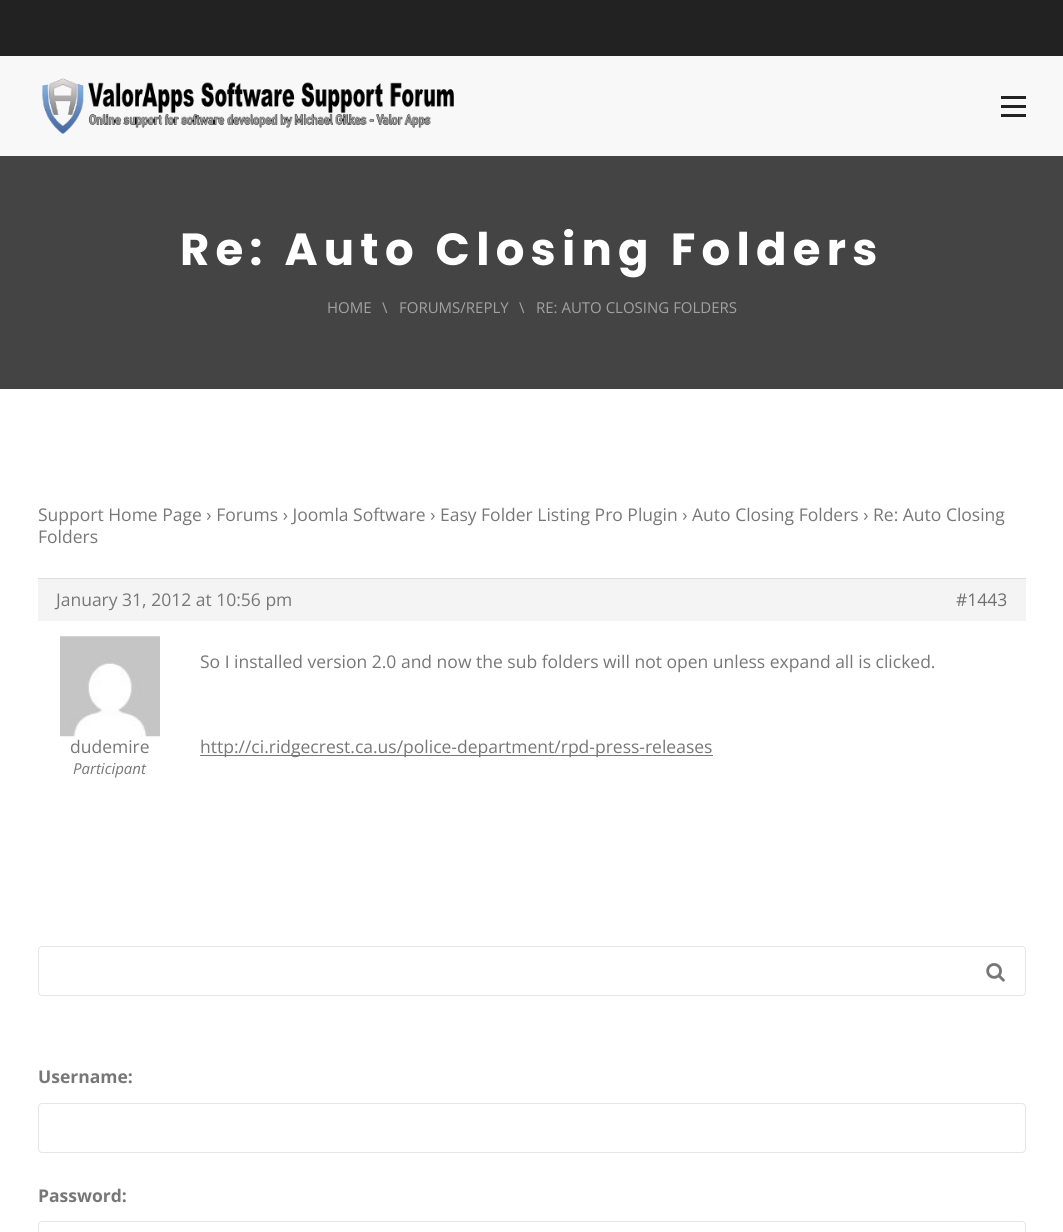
#include <cairo/cairo.h>
#include <math.h>
#include <stddef.h>


static void draw_spaced(cairo_t *cr, double x, double y, const char *s, double letter, double word) {
  cairo_move_to(cr, x, y);
  while (*s) {
    char ch[5] = {0};
    int n = 0;
    do ch[n++] = *s++; while ((*s & 0xC0) == 0x80);
    cairo_show_text(cr, ch);
    cairo_rel_move_to(cr, letter + word * (*ch == ' '), 0);
  }
}

static void rounded_rect(cairo_t *cr, double x, double y, double w, double h, double r) {
  cairo_new_sub_path(cr);
  cairo_arc(cr, x + w - r, y + h - r, r, 0, M_PI / 2);
  cairo_arc(cr, x + r, y + h - r, r, M_PI / 2, M_PI);
  cairo_arc(cr, x + r, y + r, r, M_PI, 1.5 * M_PI);
  cairo_arc(cr, x + w - r, y + r, r, 1.5 * M_PI, 2 * M_PI);
  cairo_close_path(cr);
}

static void draw_image(cairo_t *cr, const char *path, double x, double y, double w, double h) {
  cairo_surface_t *image = cairo_image_surface_create_from_png(path);
  cairo_save(cr);
  cairo_set_source_surface(cr, image, x, y);
  cairo_rectangle(cr, x, y, w, h);
  cairo_fill(cr);
  cairo_restore(cr);
  cairo_surface_destroy(image);
}

static void draw(cairo_t *cr) {
  cairo_set_source_rgb(cr, 1, 1, 1);
  cairo_paint(cr);
  cairo_set_source_rgb(cr, 34 / 255.0, 34 / 255.0, 34 / 255.0);
  cairo_rectangle(cr, 0, 0, 1063, 56);
  cairo_fill(cr);
  cairo_set_source_rgb(cr, 248 / 255.0, 248 / 255.0, 248 / 255.0);
  cairo_rectangle(cr, 0, 56, 1063, 100);
  cairo_fill(cr);
  draw_image(cr, "images/1.png", 42, 78, 412, 57);
  cairo_set_source_rgb(cr, 34 / 255.0, 34 / 255.0, 34 / 255.0);
  cairo_rectangle(cr, 1001, 96, 25, 3);
  cairo_fill(cr);
  cairo_rectangle(cr, 1001, 105, 25, 3);
  cairo_fill(cr);
  cairo_rectangle(cr, 1001, 114, 25, 3);
  cairo_fill(cr);
  cairo_set_source_rgb(cr, 68 / 255.0, 68 / 255.0, 68 / 255.0);
  cairo_rectangle(cr, 0, 156, 1063, 233);
  cairo_fill(cr);
  cairo_set_source_rgb(cr, 244 / 255.0, 244 / 255.0, 244 / 255.0);
  cairo_rectangle(cr, 38, 579, 988, 42);
  cairo_fill(cr);
  cairo_set_source_rgb(cr, 221 / 255.0, 221 / 255.0, 221 / 255.0);
  cairo_rectangle(cr, 38, 578, 988, 1);
  cairo_fill(cr);
  draw_image(cr, "images/2.png", 60, 636, 100, 101);
  cairo_set_source_rgb(cr, 119 / 255.0, 119 / 255.0, 119 / 255.0);
  cairo_rectangle(cr, 200, 755, 513, 1);
  cairo_fill(cr);
  rounded_rect(cr, 38.5, 946.5, 987, 49, 3.5);
  cairo_set_source_rgb(cr, 230 / 255.0, 230 / 255.0, 230 / 255.0);
  cairo_set_line_width(cr, 1);
  cairo_stroke(cr);
  draw_image(cr, "images/3.png", 986, 963, 19, 19);
  rounded_rect(cr, 38.5, 1103.5, 987, 49, 3.5);
  cairo_stroke(cr);
  rounded_rect(cr, 38.5, 1221.5, 987, 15, 3.5);
  cairo_stroke(cr);
  cairo_select_font_face(cr, "Poppins", CAIRO_FONT_SLANT_NORMAL, CAIRO_FONT_WEIGHT_BOLD);
  cairo_set_font_size(cr, 45);
  cairo_set_source_rgb(cr, 1, 1, 1);
  draw_spaced(cr, 180, 265, "Re: Auto Closing Folders", 6.25, 0);
  cairo_select_font_face(cr, "Open Sans", CAIRO_FONT_SLANT_NORMAL, CAIRO_FONT_WEIGHT_NORMAL);
  cairo_set_font_size(cr, 15);
  cairo_set_source_rgb(cr, 162 / 255.0, 162 / 255.0, 162 / 255.0);
  cairo_move_to(cr, 327, 313);
  cairo_show_text(cr, "HOME");
  cairo_move_to(cr, 382, 313);
  cairo_show_text(cr, "\\");
  cairo_move_to(cr, 399, 313);
  cairo_show_text(cr, "FORUMS/REPLY");
  cairo_move_to(cr, 519, 313);
  cairo_show_text(cr, "\\");
  cairo_move_to(cr, 536, 313);
  cairo_show_text(cr, "RE: AUTO CLOSING FOLDERS");
  cairo_set_font_size(cr, 17.5);
  cairo_set_source_rgb(cr, 119 / 255.0, 119 / 255.0, 119 / 255.0);
  cairo_move_to(cr, 38, 521);
  cairo_show_text(cr, "Support Home Page › Forums › Joomla Software › Easy Folder Listing Pro Plugin › Auto Closing Folders › Re: Auto Closing");
  cairo_move_to(cr, 38, 543);
  cairo_show_text(cr, "Folders");
  cairo_move_to(cr, 56, 606);
  cairo_show_text(cr, "January 31, 2012 at 10:56 pm");
  cairo_set_source_rgb(cr, 112 / 255.0, 112 / 255.0, 112 / 255.0);
  cairo_move_to(cr, 956, 606);
  cairo_show_text(cr, "#1443");
  cairo_set_source_rgb(cr, 119 / 255.0, 119 / 255.0, 119 / 255.0);
  cairo_move_to(cr, 70, 753);
  cairo_show_text(cr, "dudemire");
  cairo_select_font_face(cr, "Open Sans", CAIRO_FONT_SLANT_ITALIC, CAIRO_FONT_WEIGHT_NORMAL);
  cairo_set_font_size(cr, 15);
  cairo_move_to(cr, 73, 774);
  cairo_show_text(cr, "Participant");
  cairo_select_font_face(cr, "Open Sans", CAIRO_FONT_SLANT_NORMAL, CAIRO_FONT_WEIGHT_NORMAL);
  cairo_set_font_size(cr, 17.5);
  cairo_move_to(cr, 200, 668);
  cairo_show_text(cr, "So I installed version 2.0 and now the sub folders will not open unless expand all is clicked.");
  cairo_move_to(cr, 200, 753);
  cairo_show_text(cr, "http://ci.ridgecrest.ca.us/police-department/rpd-press-releases");
  cairo_select_font_face(cr, "Open Sans", CAIRO_FONT_SLANT_NORMAL, CAIRO_FONT_WEIGHT_BOLD);
  cairo_move_to(cr, 38, 1083);
  cairo_show_text(cr, "Username:");
  cairo_move_to(cr, 38, 1202);
  cairo_show_text(cr, "Password:");
}

int main(void) {
  cairo_surface_t *surface = cairo_image_surface_create(CAIRO_FORMAT_RGB24, 1063, 1232);
  cairo_t *cr = cairo_create(surface);
  cairo_font_options_t *options = cairo_font_options_create();
  cairo_font_options_set_hint_metrics(options, CAIRO_HINT_METRICS_OFF);
  cairo_font_options_set_hint_style(options, CAIRO_HINT_STYLE_NONE);
  cairo_set_font_options(cr, options);
  cairo_set_miter_limit(cr, 4);
  draw(cr);
  cairo_surface_write_to_png(surface, "out.png");
  cairo_font_options_destroy(options);
  cairo_destroy(cr);
  cairo_surface_destroy(surface);
  return 0;
}
